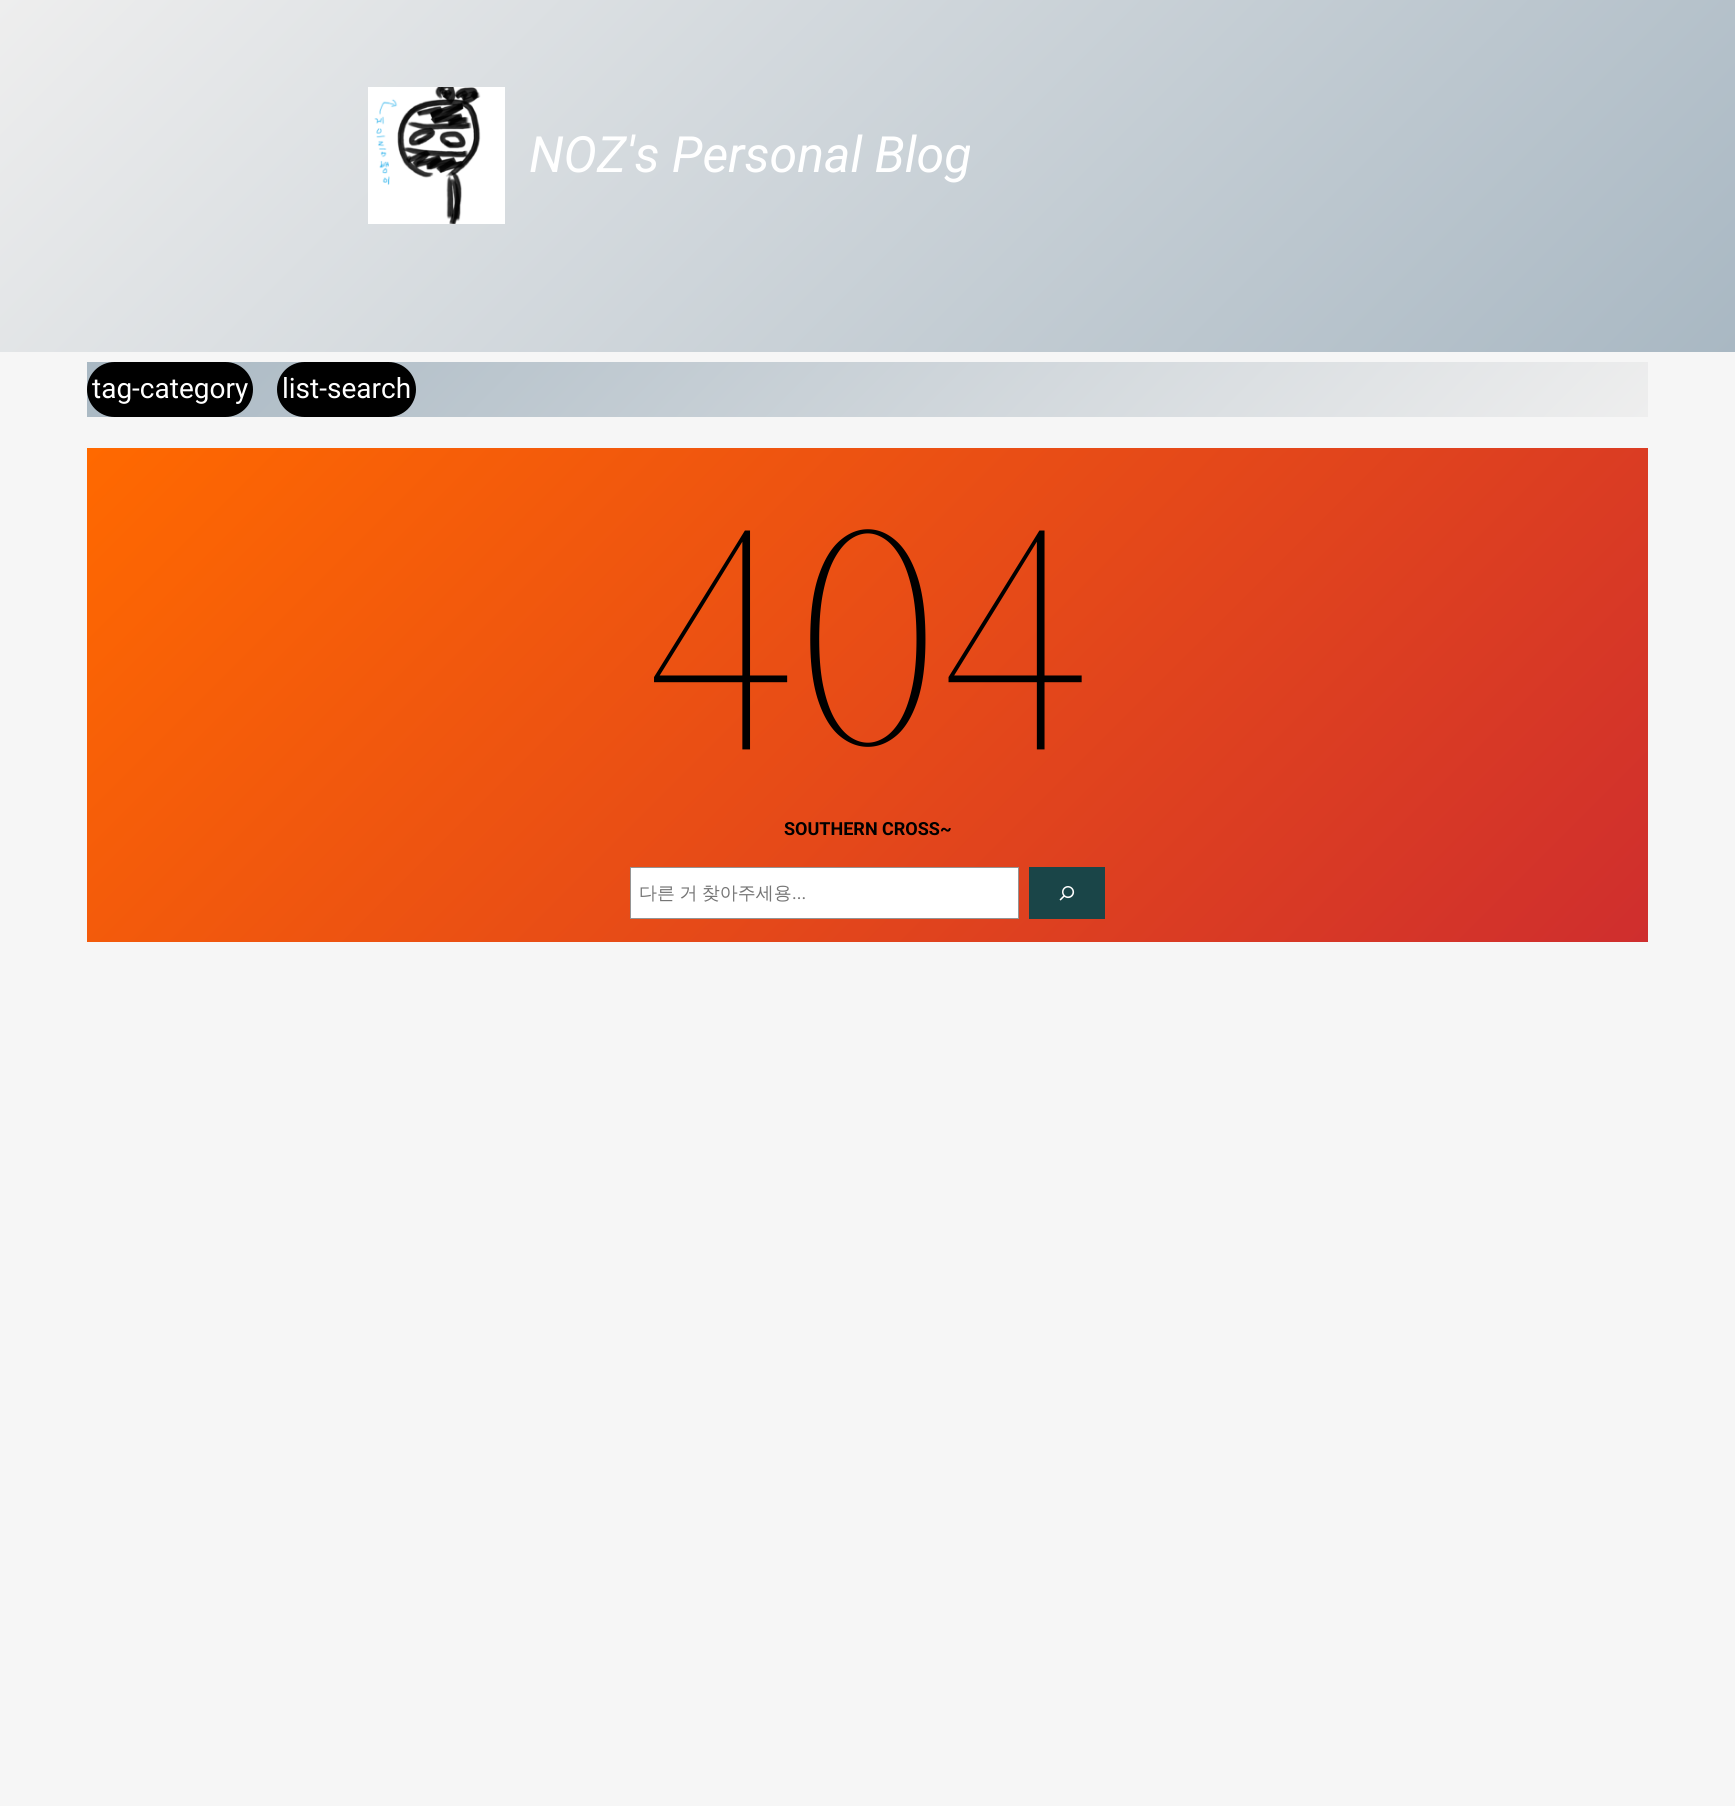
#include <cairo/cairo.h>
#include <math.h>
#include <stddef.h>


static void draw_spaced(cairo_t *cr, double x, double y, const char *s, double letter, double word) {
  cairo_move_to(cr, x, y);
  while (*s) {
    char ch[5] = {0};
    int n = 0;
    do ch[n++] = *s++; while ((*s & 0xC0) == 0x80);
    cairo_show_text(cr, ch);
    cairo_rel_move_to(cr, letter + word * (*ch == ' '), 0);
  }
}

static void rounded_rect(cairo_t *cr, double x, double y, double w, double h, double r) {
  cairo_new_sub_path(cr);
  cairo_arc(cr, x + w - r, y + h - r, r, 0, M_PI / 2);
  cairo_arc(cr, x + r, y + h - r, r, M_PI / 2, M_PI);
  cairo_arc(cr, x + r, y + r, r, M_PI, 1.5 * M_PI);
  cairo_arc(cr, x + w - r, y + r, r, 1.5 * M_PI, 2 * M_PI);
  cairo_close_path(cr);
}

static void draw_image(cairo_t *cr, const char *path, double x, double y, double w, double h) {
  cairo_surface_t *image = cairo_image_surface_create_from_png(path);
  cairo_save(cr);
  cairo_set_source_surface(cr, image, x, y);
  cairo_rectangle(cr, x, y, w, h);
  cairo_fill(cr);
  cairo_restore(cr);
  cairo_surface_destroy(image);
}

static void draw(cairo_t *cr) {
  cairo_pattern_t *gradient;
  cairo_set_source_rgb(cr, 246 / 255.0, 246 / 255.0, 246 / 255.0);
  cairo_paint(cr);
  gradient = cairo_pattern_create_linear(346, -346, 1389, 698);
  cairo_pattern_add_color_stop_rgba(gradient, 0, 238 / 255.0, 238 / 255.0, 238 / 255.0, 1);
  cairo_pattern_add_color_stop_rgba(gradient, 1, 169 / 255.0, 184 / 255.0, 195 / 255.0, 1);
  cairo_set_source(cr, gradient);
  cairo_pattern_destroy(gradient);
  cairo_rectangle(cr, 0, 0, 1735, 352);
  cairo_fill(cr);
  draw_image(cr, "images/1.png", 368, 87, 137, 137);
  gradient = cairo_pattern_create_linear(1272, 794, 463, -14);
  cairo_pattern_add_color_stop_rgba(gradient, 0, 238 / 255.0, 238 / 255.0, 238 / 255.0, 1);
  cairo_pattern_add_color_stop_rgba(gradient, 1, 169 / 255.0, 184 / 255.0, 195 / 255.0, 1);
  cairo_set_source(cr, gradient);
  cairo_pattern_destroy(gradient);
  cairo_rectangle(cr, 87, 362, 1561, 55);
  cairo_fill(cr);
  cairo_set_source_rgb(cr, 0, 0, 0);
  rounded_rect(cr, 87, 362, 166, 55, 27.5);
  cairo_fill(cr);
  rounded_rect(cr, 277, 362, 139, 55, 27.5);
  cairo_fill(cr);
  gradient = cairo_pattern_create_linear(354, 181, 1381, 1209);
  cairo_pattern_add_color_stop_rgba(gradient, 0, 1, 105 / 255.0, 0, 1);
  cairo_pattern_add_color_stop_rgba(gradient, 1, 207 / 255.0, 46 / 255.0, 46 / 255.0, 1);
  cairo_set_source(cr, gradient);
  cairo_pattern_destroy(gradient);
  cairo_rectangle(cr, 87, 448, 1561, 494);
  cairo_fill(cr);
  cairo_set_source_rgb(cr, 1, 1, 1);
  cairo_rectangle(cr, 630.5, 867.5, 388, 51);
  cairo_fill_preserve(cr);
  cairo_set_source_rgb(cr, 148 / 255.0, 148 / 255.0, 148 / 255.0);
  cairo_set_line_width(cr, 1);
  cairo_stroke(cr);
  cairo_set_source_rgb(cr, 26 / 255.0, 69 / 255.0, 72 / 255.0);
  cairo_rectangle(cr, 1029, 867, 76, 52);
  cairo_fill(cr);
  draw_image(cr, "images/2.png", 1059, 886, 16, 15);
  cairo_select_font_face(cr, "Roboto", CAIRO_FONT_SLANT_ITALIC, CAIRO_FONT_WEIGHT_NORMAL);
  cairo_set_font_size(cr, 50);
  cairo_set_source_rgb(cr, 1, 1, 1);
  cairo_move_to(cr, 529, 172);
  cairo_show_text(cr, "NOZ's Personal Blog");
  cairo_select_font_face(cr, "Roboto", CAIRO_FONT_SLANT_NORMAL, CAIRO_FONT_WEIGHT_NORMAL);
  cairo_set_font_size(cr, 28);
  cairo_move_to(cr, 92, 398);
  cairo_show_text(cr, "tag-category");
  cairo_move_to(cr, 282, 398);
  cairo_show_text(cr, "list-search");
  cairo_select_font_face(cr, "Source Serif 4 ExtraLight", CAIRO_FONT_SLANT_NORMAL, CAIRO_FONT_WEIGHT_NORMAL);
  cairo_set_font_size(cr, 320);
  cairo_set_source_rgb(cr, 0, 0, 0);
  cairo_move_to(cr, 647, 743);
  cairo_show_text(cr, "404");
  cairo_select_font_face(cr, "Roboto", CAIRO_FONT_SLANT_NORMAL, CAIRO_FONT_WEIGHT_BOLD);
  cairo_set_font_size(cr, 18);
  cairo_move_to(cr, 784, 835);
  cairo_show_text(cr, "SOUTHERN CROSS~");
  cairo_select_font_face(cr, "WenQuanYi Zen Hei Medium", CAIRO_FONT_SLANT_NORMAL, CAIRO_FONT_WEIGHT_NORMAL);
  cairo_set_source_rgb(cr, 117 / 255.0, 117 / 255.0, 117 / 255.0);
  draw_spaced(cr, 639, 899, "다른 거 찾아주세용", 0, -1);
  cairo_select_font_face(cr, "Roboto", CAIRO_FONT_SLANT_NORMAL, CAIRO_FONT_WEIGHT_NORMAL);
  cairo_move_to(cr, 792, 899);
  cairo_show_text(cr, "...");
}

int main(void) {
  cairo_surface_t *surface = cairo_image_surface_create(CAIRO_FORMAT_RGB24, 1735, 1806);
  cairo_t *cr = cairo_create(surface);
  cairo_font_options_t *options = cairo_font_options_create();
  cairo_font_options_set_hint_metrics(options, CAIRO_HINT_METRICS_OFF);
  cairo_font_options_set_hint_style(options, CAIRO_HINT_STYLE_NONE);
  cairo_set_font_options(cr, options);
  cairo_set_miter_limit(cr, 4);
  draw(cr);
  cairo_surface_write_to_png(surface, "out.png");
  cairo_font_options_destroy(options);
  cairo_destroy(cr);
  cairo_surface_destroy(surface);
  return 0;
}
